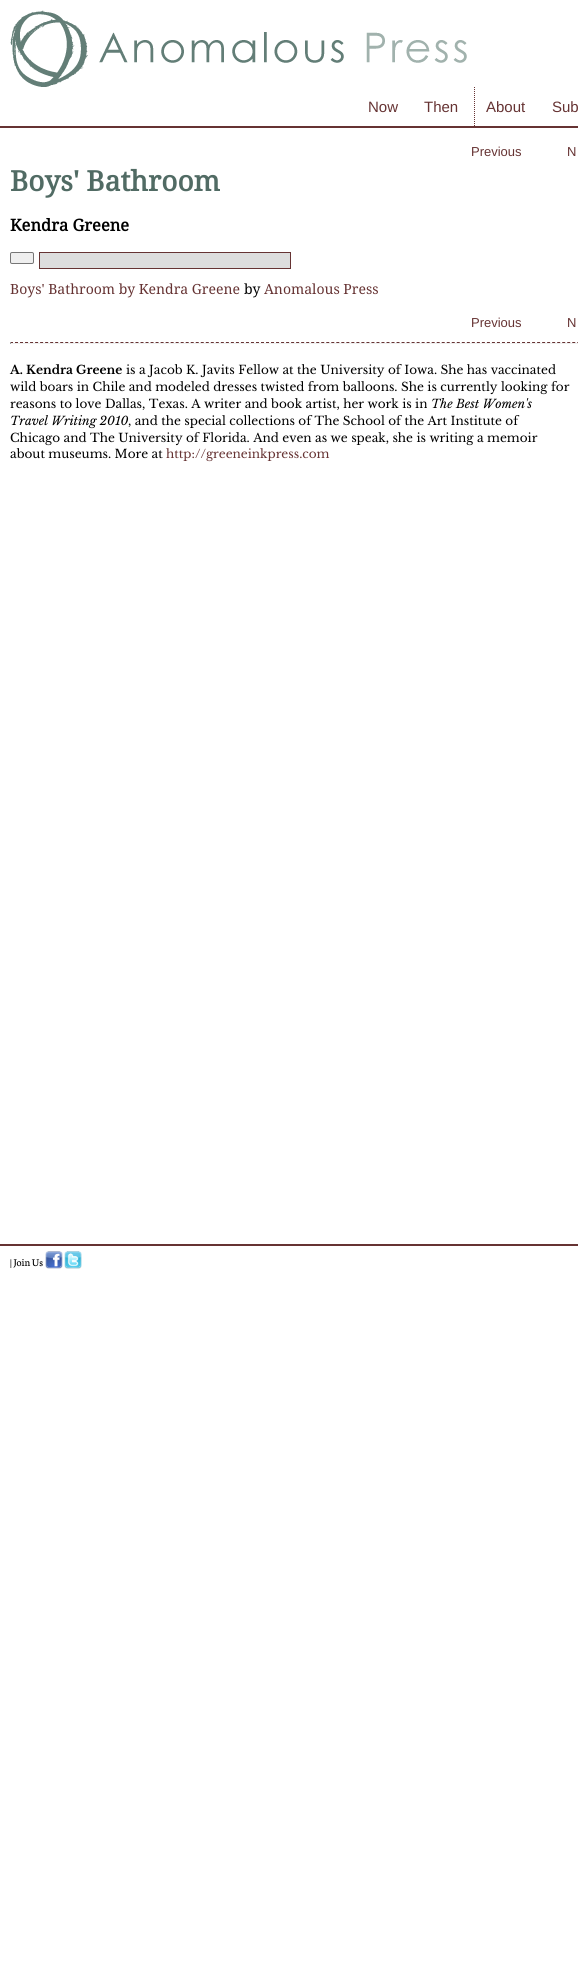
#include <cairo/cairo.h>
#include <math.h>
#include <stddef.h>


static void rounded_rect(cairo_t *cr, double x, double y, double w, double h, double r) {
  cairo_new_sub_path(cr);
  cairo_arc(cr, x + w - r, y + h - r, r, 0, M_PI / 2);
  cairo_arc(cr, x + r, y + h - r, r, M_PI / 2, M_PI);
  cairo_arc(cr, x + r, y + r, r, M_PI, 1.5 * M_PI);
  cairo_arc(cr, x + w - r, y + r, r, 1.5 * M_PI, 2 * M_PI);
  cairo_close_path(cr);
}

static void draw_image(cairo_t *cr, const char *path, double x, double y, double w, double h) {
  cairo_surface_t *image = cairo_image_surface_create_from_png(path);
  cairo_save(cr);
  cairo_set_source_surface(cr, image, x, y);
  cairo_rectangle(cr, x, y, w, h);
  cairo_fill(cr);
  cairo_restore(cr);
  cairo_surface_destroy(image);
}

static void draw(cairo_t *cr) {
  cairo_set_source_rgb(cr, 1, 1, 1);
  cairo_paint(cr);
  draw_image(cr, "images/1.png", 10, 10, 457, 77);
  cairo_set_source_rgb(cr, 102 / 255.0, 51 / 255.0, 51 / 255.0);
  cairo_rectangle(cr, 0, 126, 578, 2);
  cairo_fill(cr);
  cairo_new_path(cr);
  cairo_move_to(cr, 474.5, 87);
  cairo_line_to(cr, 474.5, 126);
  cairo_set_line_width(cr, 1);
  cairo_set_dash(cr, (double[]){1, 1}, 2, 0);
  cairo_stroke(cr);
  cairo_set_source_rgb(cr, 239 / 255.0, 239 / 255.0, 239 / 255.0);
  rounded_rect(cr, 10.5, 252.5, 23, 11, 1.5);
  cairo_fill_preserve(cr);
  cairo_set_source_rgb(cr, 118 / 255.0, 118 / 255.0, 118 / 255.0);
  cairo_set_dash(cr, NULL, 0, 0);
  cairo_stroke(cr);
  cairo_rectangle(cr, 39.5, 252.5, 251, 16);
  cairo_set_source_rgb(cr, 102 / 255.0, 51 / 255.0, 51 / 255.0);
  cairo_stroke(cr);
  cairo_set_source_rgb(cr, 221 / 255.0, 221 / 255.0, 221 / 255.0);
  cairo_rectangle(cr, 40, 253, 250, 15);
  cairo_fill(cr);
  cairo_new_path(cr);
  cairo_move_to(cr, 10, 342.5);
  cairo_line_to(cr, 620, 342.5);
  cairo_set_source_rgb(cr, 102 / 255.0, 51 / 255.0, 51 / 255.0);
  cairo_set_dash(cr, (double[]){3, 2.02}, 2, 0);
  cairo_stroke(cr);
  cairo_set_source_rgb(cr, 238 / 255.0, 238 / 255.0, 238 / 255.0);
  cairo_rectangle(cr, 10, 343, 568, 1);
  cairo_fill(cr);
  cairo_set_source_rgb(cr, 159 / 255.0, 159 / 255.0, 159 / 255.0);
  cairo_rectangle(cr, 10, 342, 1, 2);
  cairo_fill(cr);
  cairo_set_source_rgb(cr, 102 / 255.0, 51 / 255.0, 51 / 255.0);
  cairo_rectangle(cr, 0, 1244, 578, 2);
  cairo_fill(cr);
  draw_image(cr, "images/2.png", 45, 1251, 18, 18);
  draw_image(cr, "images/3.png", 64, 1251, 18, 18);
  cairo_select_font_face(cr, "Liberation Sans", CAIRO_FONT_SLANT_NORMAL, CAIRO_FONT_WEIGHT_NORMAL);
  cairo_set_font_size(cr, 15);
  cairo_move_to(cr, 368, 112);
  cairo_show_text(cr, "Now");
  cairo_move_to(cr, 424, 112);
  cairo_show_text(cr, "Then");
  cairo_move_to(cr, 486, 112);
  cairo_show_text(cr, "About");
  cairo_move_to(cr, 552, 112);
  cairo_show_text(cr, "Sub");
  cairo_set_font_size(cr, 13);
  cairo_move_to(cr, 471, 156);
  cairo_show_text(cr, "Previous");
  cairo_move_to(cr, 567, 156);
  cairo_show_text(cr, "N");
  cairo_select_font_face(cr, "Droid Serif", CAIRO_FONT_SLANT_NORMAL, CAIRO_FONT_WEIGHT_BOLD);
  cairo_set_font_size(cr, 28);
  cairo_set_source_rgb(cr, 81 / 255.0, 107 / 255.0, 100 / 255.0);
  cairo_move_to(cr, 10, 191);
  cairo_show_text(cr, "Boys' Bathroom");
  cairo_set_font_size(cr, 16.5);
  cairo_set_source_rgb(cr, 0, 0, 0);
  cairo_move_to(cr, 10, 231);
  cairo_show_text(cr, "Kendra Greene");
  cairo_select_font_face(cr, "Droid Serif", CAIRO_FONT_SLANT_NORMAL, CAIRO_FONT_WEIGHT_NORMAL);
  cairo_set_font_size(cr, 14);
  cairo_set_source_rgb(cr, 102 / 255.0, 51 / 255.0, 51 / 255.0);
  cairo_move_to(cr, 10, 294);
  cairo_show_text(cr, "Boys' Bathroom by Kendra Greene");
  cairo_set_source_rgb(cr, 0, 0, 0);
  cairo_move_to(cr, 244, 294);
  cairo_show_text(cr, "by");
  cairo_set_source_rgb(cr, 102 / 255.0, 51 / 255.0, 51 / 255.0);
  cairo_move_to(cr, 264, 294);
  cairo_show_text(cr, "Anomalous Press");
  cairo_select_font_face(cr, "Liberation Sans", CAIRO_FONT_SLANT_NORMAL, CAIRO_FONT_WEIGHT_NORMAL);
  cairo_set_font_size(cr, 13);
  cairo_move_to(cr, 471, 327);
  cairo_show_text(cr, "Previous");
  cairo_move_to(cr, 567, 327);
  cairo_show_text(cr, "N");
  cairo_select_font_face(cr, "Libre Baskerville", CAIRO_FONT_SLANT_NORMAL, CAIRO_FONT_WEIGHT_BOLD);
  cairo_set_font_size(cr, 12);
  cairo_set_source_rgb(cr, 0, 0, 0);
  cairo_move_to(cr, 10, 374);
  cairo_show_text(cr, "A. Kendra Greene");
  cairo_select_font_face(cr, "Libre Baskerville", CAIRO_FONT_SLANT_NORMAL, CAIRO_FONT_WEIGHT_NORMAL);
  cairo_move_to(cr, 126, 374);
  cairo_show_text(cr, "is a Jacob K. Javits Fellow at the University of Iowa. She has vaccinated");
  cairo_move_to(cr, 10, 391);
  cairo_show_text(cr, "wild boars in Chile and modeled dresses twisted from balloons. She is currently looking for");
  cairo_move_to(cr, 10, 408);
  cairo_show_text(cr, "reasons to love Dallas, Texas. A writer and book artist, her work is in");
  cairo_select_font_face(cr, "Libre Baskerville", CAIRO_FONT_SLANT_ITALIC, CAIRO_FONT_WEIGHT_NORMAL);
  cairo_move_to(cr, 431, 408);
  cairo_show_text(cr, "The Best Women's");
  cairo_move_to(cr, 10, 425);
  cairo_show_text(cr, "Travel Writing 2010");
  cairo_select_font_face(cr, "Libre Baskerville", CAIRO_FONT_SLANT_NORMAL, CAIRO_FONT_WEIGHT_NORMAL);
  cairo_move_to(cr, 128, 425);
  cairo_show_text(cr, ", and the special collections of The School of the Art Institute of");
  cairo_move_to(cr, 10, 442);
  cairo_show_text(cr, "Chicago and The University of Florida. And even as we speak, she is writing a memoir");
  cairo_move_to(cr, 10, 458);
  cairo_show_text(cr, "about museums. More at");
  cairo_set_source_rgb(cr, 102 / 255.0, 51 / 255.0, 51 / 255.0);
  cairo_move_to(cr, 166, 458);
  cairo_show_text(cr, "http://greeneinkpress.com");
  cairo_select_font_face(cr, "Neuton", CAIRO_FONT_SLANT_NORMAL, CAIRO_FONT_WEIGHT_NORMAL);
  cairo_set_font_size(cr, 11);
  cairo_set_source_rgb(cr, 0, 0, 0);
  cairo_move_to(cr, 10, 1266);
  cairo_show_text(cr, "| Join Us");
}

int main(void) {
  cairo_surface_t *surface = cairo_image_surface_create(CAIRO_FORMAT_RGB24, 578, 1966);
  cairo_t *cr = cairo_create(surface);
  cairo_font_options_t *options = cairo_font_options_create();
  cairo_font_options_set_hint_metrics(options, CAIRO_HINT_METRICS_OFF);
  cairo_font_options_set_hint_style(options, CAIRO_HINT_STYLE_NONE);
  cairo_set_font_options(cr, options);
  cairo_set_miter_limit(cr, 4);
  draw(cr);
  cairo_surface_write_to_png(surface, "out.png");
  cairo_font_options_destroy(options);
  cairo_destroy(cr);
  cairo_surface_destroy(surface);
  return 0;
}
